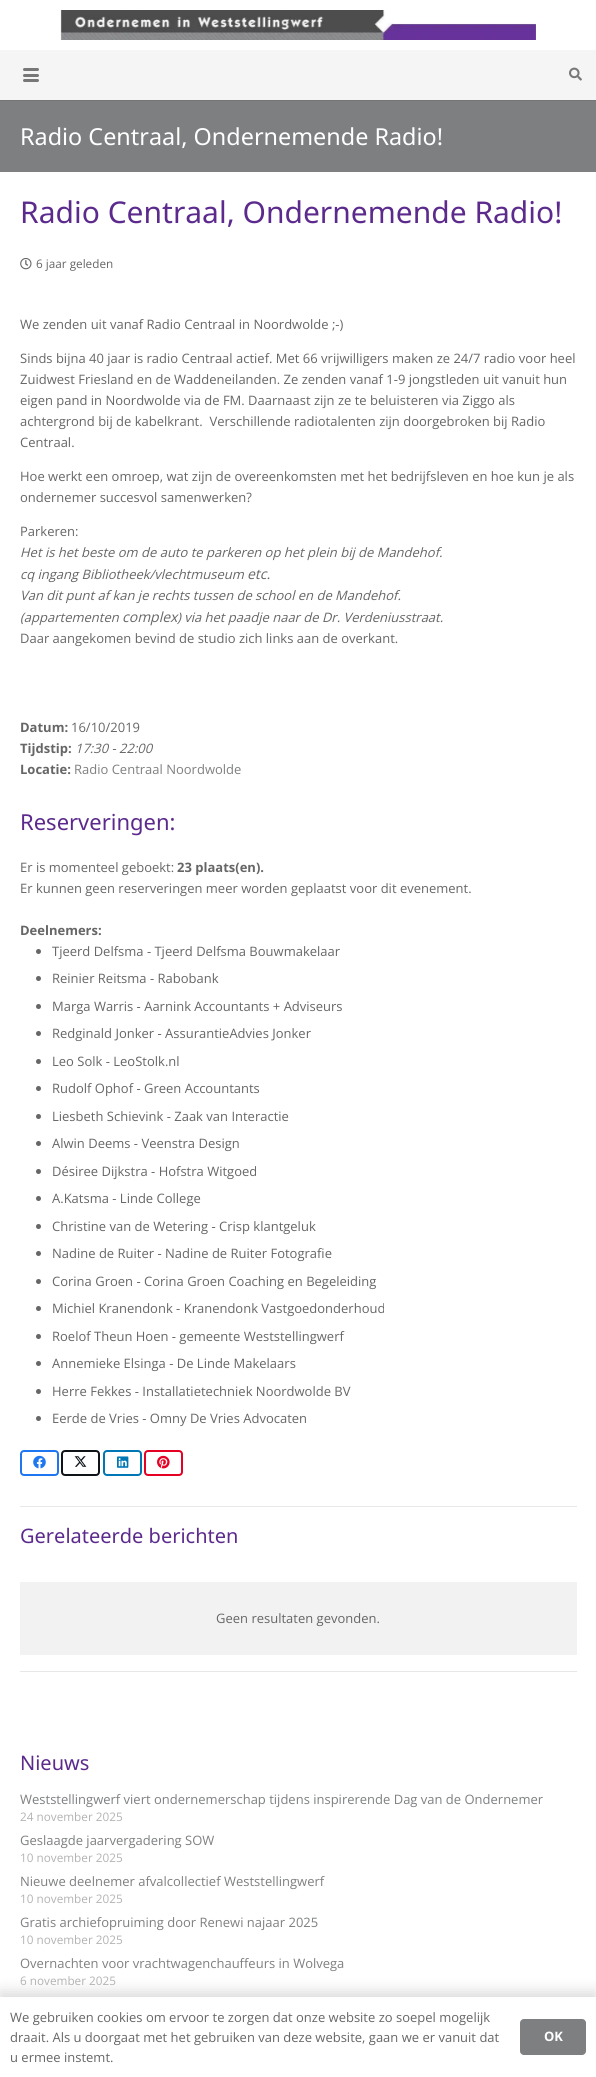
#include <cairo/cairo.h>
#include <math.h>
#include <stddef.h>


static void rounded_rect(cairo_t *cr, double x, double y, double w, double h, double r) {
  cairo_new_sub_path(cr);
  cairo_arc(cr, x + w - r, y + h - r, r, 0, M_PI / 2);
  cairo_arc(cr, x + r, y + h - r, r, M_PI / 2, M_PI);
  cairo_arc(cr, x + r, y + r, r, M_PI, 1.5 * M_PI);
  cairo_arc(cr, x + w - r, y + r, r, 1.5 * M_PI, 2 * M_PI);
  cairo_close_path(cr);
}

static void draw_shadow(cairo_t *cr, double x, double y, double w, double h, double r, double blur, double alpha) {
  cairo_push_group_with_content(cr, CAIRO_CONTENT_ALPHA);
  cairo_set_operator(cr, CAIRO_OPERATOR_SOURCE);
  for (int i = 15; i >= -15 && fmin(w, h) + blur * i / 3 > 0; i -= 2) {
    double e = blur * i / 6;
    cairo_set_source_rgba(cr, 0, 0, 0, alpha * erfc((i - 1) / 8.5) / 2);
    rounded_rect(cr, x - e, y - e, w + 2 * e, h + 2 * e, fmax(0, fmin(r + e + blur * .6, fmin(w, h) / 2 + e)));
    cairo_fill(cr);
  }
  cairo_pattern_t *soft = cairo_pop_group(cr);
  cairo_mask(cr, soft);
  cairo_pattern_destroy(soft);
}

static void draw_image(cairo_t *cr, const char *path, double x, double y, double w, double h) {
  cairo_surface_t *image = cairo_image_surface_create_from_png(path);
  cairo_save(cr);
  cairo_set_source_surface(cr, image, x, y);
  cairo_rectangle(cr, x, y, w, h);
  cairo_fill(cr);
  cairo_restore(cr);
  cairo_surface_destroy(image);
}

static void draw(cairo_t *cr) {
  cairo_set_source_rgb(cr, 1, 1, 1);
  cairo_paint(cr);
  draw_image(cr, "images/1.png", 60, 10, 476, 30);
  cairo_set_source_rgb(cr, 115 / 255.0, 117 / 255.0, 119 / 255.0);
  cairo_rectangle(cr, 0, 100, 596, 1);
  cairo_fill(cr);
  cairo_set_source_rgb(cr, 245 / 255.0, 245 / 255.0, 245 / 255.0);
  cairo_rectangle(cr, 0, 50, 596, 50);
  cairo_fill(cr);
  cairo_set_source_rgb(cr, 119 / 255.0, 119 / 255.0, 119 / 255.0);
  rounded_rect(cr, 23, 74, 16, 3, 1.5);
  cairo_fill(cr);
  rounded_rect(cr, 23, 68, 16, 3, 1.5);
  cairo_fill(cr);
  rounded_rect(cr, 23, 79, 16, 3, 1.5);
  cairo_fill(cr);
  draw_image(cr, "images/2.png", 569, 67, 13, 14);
  cairo_set_source_rgb(cr, 125 / 255.0, 127 / 255.0, 129 / 255.0);
  cairo_rectangle(cr, 0, 101, 596, 71);
  cairo_fill(cr);
  draw_image(cr, "images/3.png", 20, 257, 12, 13);
  cairo_set_source_rgb(cr, 102 / 255.0, 102 / 255.0, 102 / 255.0);
  cairo_arc(cr, 38.5, 951.5, 2.5, 0, 2 * M_PI);
  cairo_fill(cr);
  cairo_arc(cr, 38.5, 978.5, 2.5, 0, 2 * M_PI);
  cairo_fill(cr);
  cairo_arc(cr, 38.5, 1006.5, 2.5, 0, 2 * M_PI);
  cairo_fill(cr);
  cairo_arc(cr, 38.5, 1033.5, 2.5, 0, 2 * M_PI);
  cairo_fill(cr);
  cairo_arc(cr, 38.5, 1061.5, 2.5, 0, 2 * M_PI);
  cairo_fill(cr);
  cairo_arc(cr, 38.5, 1088.5, 2.5, 0, 2 * M_PI);
  cairo_fill(cr);
  cairo_arc(cr, 38.5, 1116.5, 2.5, 0, 2 * M_PI);
  cairo_fill(cr);
  cairo_arc(cr, 38.5, 1143.5, 2.5, 0, 2 * M_PI);
  cairo_fill(cr);
  cairo_arc(cr, 38.5, 1171.5, 2.5, 0, 2 * M_PI);
  cairo_fill(cr);
  cairo_arc(cr, 38.5, 1198.5, 2.5, 0, 2 * M_PI);
  cairo_fill(cr);
  cairo_arc(cr, 38.5, 1226.5, 2.5, 0, 2 * M_PI);
  cairo_fill(cr);
  cairo_arc(cr, 38.5, 1253.5, 2.5, 0, 2 * M_PI);
  cairo_fill(cr);
  cairo_arc(cr, 38.5, 1281.5, 2.5, 0, 2 * M_PI);
  cairo_fill(cr);
  cairo_arc(cr, 38.5, 1308.5, 2.5, 0, 2 * M_PI);
  cairo_fill(cr);
  cairo_arc(cr, 38.5, 1336.5, 2.5, 0, 2 * M_PI);
  cairo_fill(cr);
  cairo_arc(cr, 38.5, 1363.5, 2.5, 0, 2 * M_PI);
  cairo_fill(cr);
  cairo_arc(cr, 38.5, 1391.5, 2.5, 0, 2 * M_PI);
  cairo_fill(cr);
  cairo_arc(cr, 38.5, 1418.5, 2.5, 0, 2 * M_PI);
  cairo_fill(cr);
  rounded_rect(cr, 21, 1451, 37, 24, 3);
  cairo_set_source_rgb(cr, 30 / 255.0, 119 / 255.0, 240 / 255.0);
  cairo_stroke(cr);
  draw_image(cr, "images/4.png", 33, 1455, 13, 14);
  rounded_rect(cr, 62, 1451, 37, 24, 3);
  cairo_set_source_rgb(cr, 15 / 255.0, 20 / 255.0, 25 / 255.0);
  cairo_stroke(cr);
  draw_image(cr, "images/5.png", 74, 1456, 13, 11);
  rounded_rect(cr, 104, 1451, 37, 24, 3);
  cairo_set_source_rgb(cr, 0, 119 / 255.0, 181 / 255.0);
  cairo_stroke(cr);
  draw_image(cr, "images/6.png", 117, 1456, 12, 12);
  rounded_rect(cr, 145, 1451, 37, 24, 3);
  cairo_set_source_rgb(cr, 230 / 255.0, 0, 35 / 255.0);
  cairo_stroke(cr);
  draw_image(cr, "images/7.png", 157, 1455, 13, 14);
  cairo_set_source_rgb(cr, 232 / 255.0, 232 / 255.0, 232 / 255.0);
  cairo_rectangle(cr, 20, 1506, 557, 1);
  cairo_fill(cr);
  cairo_set_source_rgb(cr, 242 / 255.0, 242 / 255.0, 242 / 255.0);
  cairo_rectangle(cr, 20, 1582, 557, 73);
  cairo_fill(cr);
  cairo_set_source_rgb(cr, 232 / 255.0, 232 / 255.0, 232 / 255.0);
  cairo_rectangle(cr, 20, 1671, 557, 1);
  cairo_fill(cr);
  cairo_set_source_rgb(cr, 0, 0, 0);
  draw_shadow(cr, 0, 1992, 596, 80, 0, 7.5, 0.15);
  cairo_set_source_rgb(cr, 1, 1, 1);
  cairo_rectangle(cr, 0, 1997, 596, 80);
  cairo_fill(cr);
  cairo_set_source_rgb(cr, 125 / 255.0, 127 / 255.0, 129 / 255.0);
  rounded_rect(cr, 520, 2019, 66, 36, 4);
  cairo_fill(cr);
  cairo_select_font_face(cr, "Noto Sans", CAIRO_FONT_SLANT_NORMAL, CAIRO_FONT_WEIGHT_NORMAL);
  cairo_set_font_size(cr, 23.4);
  cairo_set_source_rgb(cr, 1, 1, 1);
  cairo_move_to(cr, 20, 145);
  cairo_show_text(cr, "Radio Centraal, Ondernemende Radio!");
  cairo_set_font_size(cr, 30);
  cairo_set_source_rgb(cr, 91 / 255.0, 42 / 255.0, 140 / 255.0);
  cairo_move_to(cr, 20, 223);
  cairo_show_text(cr, "Radio Centraal, Ondernemende Radio!");
  cairo_select_font_face(cr, "Open Sans", CAIRO_FONT_SLANT_NORMAL, CAIRO_FONT_WEIGHT_NORMAL);
  cairo_set_font_size(cr, 11.75);
  cairo_set_source_rgb(cr, 102 / 255.0, 102 / 255.0, 102 / 255.0);
  cairo_move_to(cr, 36, 268);
  cairo_show_text(cr, "6 jaar geleden");
  cairo_set_font_size(cr, 13);
  cairo_move_to(cr, 20, 329);
  cairo_show_text(cr, "We zenden uit vanaf Radio Centraal in Noordwolde ;-)");
  cairo_move_to(cr, 20, 363);
  cairo_show_text(cr, "Sinds bijna 40 jaar is radio Centraal actief. Met 66 vrijwilligers maken ze 24/7 radio voor heel");
  cairo_move_to(cr, 20, 384);
  cairo_show_text(cr, "Zuidwest Friesland en de Waddeneilanden. Ze zenden vanaf 1-9 jongstleden uit vanuit hun");
  cairo_move_to(cr, 20, 405);
  cairo_show_text(cr, "eigen pand in Noordwolde via de FM. Daarnaast zijn ze te beluisteren via Ziggo als");
  cairo_move_to(cr, 20, 426);
  cairo_show_text(cr, "achtergrond bij de kabelkrant.  Verschillende radiotalenten zijn doorgebroken bij Radio");
  cairo_move_to(cr, 20, 447);
  cairo_show_text(cr, "Centraal.");
  cairo_move_to(cr, 20, 481);
  cairo_show_text(cr, "Hoe werkt een omroep, wat zijn de overeenkomsten met het bedrijfsleven en hoe kun je als");
  cairo_move_to(cr, 20, 502);
  cairo_show_text(cr, "ondernemer succesvol samenwerken?");
  cairo_move_to(cr, 20, 536);
  cairo_show_text(cr, "Parkeren:");
  cairo_select_font_face(cr, "Open Sans", CAIRO_FONT_SLANT_ITALIC, CAIRO_FONT_WEIGHT_NORMAL);
  cairo_move_to(cr, 20, 557);
  cairo_show_text(cr, "Het is het beste om de auto te parkeren op het plein bij de Mandehof.");
  cairo_move_to(cr, 20, 579);
  cairo_show_text(cr, "cq ingang Bibliotheek/vlechtmuseum");
  cairo_set_font_size(cr, 14);
  cairo_move_to(cr, 247, 579);
  cairo_show_text(cr, "etc.");
  cairo_set_font_size(cr, 13);
  cairo_move_to(cr, 20, 600);
  cairo_show_text(cr, "Van dit punt af kan je rechts tussen de school en de Mandehof.");
  cairo_move_to(cr, 20, 622);
  cairo_show_text(cr, "(appartementen");
  cairo_set_font_size(cr, 14);
  cairo_move_to(cr, 122, 622);
  cairo_show_text(cr, "complex");
  cairo_set_font_size(cr, 13);
  cairo_move_to(cr, 177, 622);
  cairo_show_text(cr, ") via het paadje naar de Dr. Verdeniusstraat.");
  cairo_select_font_face(cr, "Open Sans", CAIRO_FONT_SLANT_NORMAL, CAIRO_FONT_WEIGHT_NORMAL);
  cairo_move_to(cr, 20, 643);
  cairo_show_text(cr, "Daar aangekomen bevind de studio zich links aan de overkant.");
  cairo_select_font_face(cr, "Open Sans", CAIRO_FONT_SLANT_NORMAL, CAIRO_FONT_WEIGHT_BOLD);
  cairo_move_to(cr, 20, 732);
  cairo_show_text(cr, "Datum:");
  cairo_select_font_face(cr, "Open Sans", CAIRO_FONT_SLANT_NORMAL, CAIRO_FONT_WEIGHT_NORMAL);
  cairo_move_to(cr, 71, 732);
  cairo_show_text(cr, "16/10/2019");
  cairo_select_font_face(cr, "Open Sans", CAIRO_FONT_SLANT_NORMAL, CAIRO_FONT_WEIGHT_BOLD);
  cairo_move_to(cr, 20, 753);
  cairo_show_text(cr, "Tijdstip:");
  cairo_select_font_face(cr, "Open Sans", CAIRO_FONT_SLANT_ITALIC, CAIRO_FONT_WEIGHT_NORMAL);
  cairo_move_to(cr, 75, 753);
  cairo_show_text(cr, "17:30 - 22:00");
  cairo_select_font_face(cr, "Open Sans", CAIRO_FONT_SLANT_NORMAL, CAIRO_FONT_WEIGHT_BOLD);
  cairo_move_to(cr, 20, 774);
  cairo_show_text(cr, "Locatie:");
  cairo_select_font_face(cr, "Open Sans", CAIRO_FONT_SLANT_NORMAL, CAIRO_FONT_WEIGHT_NORMAL);
  cairo_set_source_rgb(cr, 125 / 255.0, 127 / 255.0, 129 / 255.0);
  cairo_move_to(cr, 74, 774);
  cairo_show_text(cr, "Radio Centraal Noordwolde");
  cairo_select_font_face(cr, "Noto Sans", CAIRO_FONT_SLANT_NORMAL, CAIRO_FONT_WEIGHT_NORMAL);
  cairo_set_font_size(cr, 22);
  cairo_set_source_rgb(cr, 91 / 255.0, 42 / 255.0, 140 / 255.0);
  cairo_move_to(cr, 20, 830);
  cairo_show_text(cr, "Reserveringen:");
  cairo_select_font_face(cr, "Open Sans", CAIRO_FONT_SLANT_NORMAL, CAIRO_FONT_WEIGHT_NORMAL);
  cairo_set_font_size(cr, 13);
  cairo_set_source_rgb(cr, 102 / 255.0, 102 / 255.0, 102 / 255.0);
  cairo_move_to(cr, 20, 872);
  cairo_show_text(cr, "Er is momenteel geboekt:");
  cairo_select_font_face(cr, "Open Sans", CAIRO_FONT_SLANT_NORMAL, CAIRO_FONT_WEIGHT_BOLD);
  cairo_move_to(cr, 177, 872);
  cairo_show_text(cr, "23 plaats(en).");
  cairo_select_font_face(cr, "Open Sans", CAIRO_FONT_SLANT_NORMAL, CAIRO_FONT_WEIGHT_NORMAL);
  cairo_move_to(cr, 20, 893);
  cairo_show_text(cr, "Er kunnen geen reserveringen meer worden geplaatst voor dit evenement.");
  cairo_select_font_face(cr, "Open Sans", CAIRO_FONT_SLANT_NORMAL, CAIRO_FONT_WEIGHT_BOLD);
  cairo_move_to(cr, 20, 935);
  cairo_show_text(cr, "Deelnemers:");
  cairo_select_font_face(cr, "Open Sans", CAIRO_FONT_SLANT_NORMAL, CAIRO_FONT_WEIGHT_NORMAL);
  cairo_move_to(cr, 52, 956);
  cairo_show_text(cr, "Tjeerd Delfsma - Tjeerd Delfsma Bouwmakelaar");
  cairo_move_to(cr, 52, 983);
  cairo_show_text(cr, "Reinier Reitsma - Rabobank");
  cairo_move_to(cr, 52, 1011);
  cairo_show_text(cr, "Marga Warris - Aarnink Accountants + Adviseurs");
  cairo_move_to(cr, 52, 1038);
  cairo_show_text(cr, "Redginald Jonker - AssurantieAdvies Jonker");
  cairo_move_to(cr, 52, 1066);
  cairo_show_text(cr, "Leo Solk - LeoStolk.nl");
  cairo_move_to(cr, 52, 1093);
  cairo_show_text(cr, "Rudolf Ophof - Green Accountants");
  cairo_move_to(cr, 52, 1121);
  cairo_show_text(cr, "Liesbeth Schievink - Zaak van Interactie");
  cairo_move_to(cr, 52, 1148);
  cairo_show_text(cr, "Alwin Deems - Veenstra Design");
  cairo_move_to(cr, 52, 1176);
  cairo_show_text(cr, "Désiree Dijkstra - Hofstra Witgoed");
  cairo_move_to(cr, 52, 1203);
  cairo_show_text(cr, "A.Katsma - Linde College");
  cairo_move_to(cr, 52, 1231);
  cairo_show_text(cr, "Christine van de Wetering - Crisp klantgeluk");
  cairo_move_to(cr, 52, 1258);
  cairo_show_text(cr, "Nadine de Ruiter - Nadine de Ruiter Fotografie");
  cairo_move_to(cr, 52, 1286);
  cairo_show_text(cr, "Corina Groen - Corina Groen Coaching en Begeleiding");
  cairo_move_to(cr, 52, 1313);
  cairo_show_text(cr, "Michiel Kranendonk - Kranendonk Vastgoedonderhoud");
  cairo_move_to(cr, 52, 1341);
  cairo_show_text(cr, "Roelof Theun Hoen - gemeente Weststellingwerf");
  cairo_move_to(cr, 52, 1368);
  cairo_show_text(cr, "Annemieke Elsinga - De Linde Makelaars");
  cairo_move_to(cr, 52, 1396);
  cairo_show_text(cr, "Herre Fekkes - Installatietechniek Noordwolde BV");
  cairo_move_to(cr, 52, 1423);
  cairo_show_text(cr, "Eerde de Vries - Omny De Vries Advocaten");
  cairo_select_font_face(cr, "Noto Sans", CAIRO_FONT_SLANT_NORMAL, CAIRO_FONT_WEIGHT_NORMAL);
  cairo_set_font_size(cr, 20);
  cairo_set_source_rgb(cr, 91 / 255.0, 42 / 255.0, 140 / 255.0);
  cairo_move_to(cr, 20, 1543);
  cairo_show_text(cr, "Gerelateerde berichten");
  cairo_select_font_face(cr, "Open Sans", CAIRO_FONT_SLANT_NORMAL, CAIRO_FONT_WEIGHT_NORMAL);
  cairo_set_font_size(cr, 13);
  cairo_set_source_rgb(cr, 102 / 255.0, 102 / 255.0, 102 / 255.0);
  cairo_move_to(cr, 216, 1623);
  cairo_show_text(cr, "Geen resultaten gevonden.");
  cairo_select_font_face(cr, "Noto Sans", CAIRO_FONT_SLANT_NORMAL, CAIRO_FONT_WEIGHT_NORMAL);
  cairo_set_font_size(cr, 20);
  cairo_set_source_rgb(cr, 91 / 255.0, 42 / 255.0, 140 / 255.0);
  cairo_move_to(cr, 20, 1770);
  cairo_show_text(cr, "Nieuws");
  cairo_select_font_face(cr, "Open Sans", CAIRO_FONT_SLANT_NORMAL, CAIRO_FONT_WEIGHT_NORMAL);
  cairo_set_font_size(cr, 13);
  cairo_set_source_rgb(cr, 125 / 255.0, 127 / 255.0, 129 / 255.0);
  cairo_move_to(cr, 20, 1804);
  cairo_show_text(cr, "Weststellingwerf viert ondernemerschap tijdens inspirerende Dag van de Ondernemer");
  cairo_set_font_size(cr, 11.75);
  cairo_set_source_rgb(cr, 179 / 255.0, 179 / 255.0, 179 / 255.0);
  cairo_move_to(cr, 20, 1821);
  cairo_show_text(cr, "24 november 2025");
  cairo_set_font_size(cr, 13);
  cairo_set_source_rgb(cr, 125 / 255.0, 127 / 255.0, 129 / 255.0);
  cairo_move_to(cr, 20, 1845);
  cairo_show_text(cr, "Geslaagde jaarvergadering SOW");
  cairo_set_font_size(cr, 11.75);
  cairo_set_source_rgb(cr, 179 / 255.0, 179 / 255.0, 179 / 255.0);
  cairo_move_to(cr, 20, 1862);
  cairo_show_text(cr, "10 november 2025");
  cairo_set_font_size(cr, 13);
  cairo_set_source_rgb(cr, 125 / 255.0, 127 / 255.0, 129 / 255.0);
  cairo_move_to(cr, 20, 1886);
  cairo_show_text(cr, "Nieuwe deelnemer afvalcollectief Weststellingwerf");
  cairo_set_font_size(cr, 11.75);
  cairo_set_source_rgb(cr, 179 / 255.0, 179 / 255.0, 179 / 255.0);
  cairo_move_to(cr, 20, 1903);
  cairo_show_text(cr, "10 november 2025");
  cairo_set_font_size(cr, 13);
  cairo_set_source_rgb(cr, 125 / 255.0, 127 / 255.0, 129 / 255.0);
  cairo_move_to(cr, 20, 1927);
  cairo_show_text(cr, "Gratis archiefopruiming door Renewi najaar 2025");
  cairo_set_font_size(cr, 11.75);
  cairo_set_source_rgb(cr, 179 / 255.0, 179 / 255.0, 179 / 255.0);
  cairo_move_to(cr, 20, 1944);
  cairo_show_text(cr, "10 november 2025");
  cairo_set_font_size(cr, 13);
  cairo_set_source_rgb(cr, 125 / 255.0, 127 / 255.0, 129 / 255.0);
  cairo_move_to(cr, 20, 1968);
  cairo_show_text(cr, "Overnachten voor vrachtwagenchauffeurs in Wolvega");
  cairo_set_font_size(cr, 11.75);
  cairo_set_source_rgb(cr, 179 / 255.0, 179 / 255.0, 179 / 255.0);
  cairo_move_to(cr, 20, 1985);
  cairo_show_text(cr, "6 november 2025");
  cairo_set_font_size(cr, 13);
  cairo_set_source_rgb(cr, 102 / 255.0, 102 / 255.0, 102 / 255.0);
  cairo_move_to(cr, 10, 2022);
  cairo_show_text(cr, "We gebruiken cookies om ervoor te zorgen dat onze website zo soepel mogelijk");
  cairo_move_to(cr, 10, 2042);
  cairo_show_text(cr, "draait. Als u doorgaat met het gebruiken van deze website, gaan we er vanuit dat");
  cairo_move_to(cr, 10, 2062);
  cairo_show_text(cr, "u ermee instemt.");
  cairo_select_font_face(cr, "Open Sans", CAIRO_FONT_SLANT_NORMAL, CAIRO_FONT_WEIGHT_BOLD);
  cairo_set_source_rgb(cr, 1, 1, 1);
  cairo_move_to(cr, 544, 2041);
  cairo_show_text(cr, "OK");
}

int main(void) {
  cairo_surface_t *surface = cairo_image_surface_create(CAIRO_FORMAT_RGB24, 596, 2077);
  cairo_t *cr = cairo_create(surface);
  cairo_font_options_t *options = cairo_font_options_create();
  cairo_font_options_set_hint_metrics(options, CAIRO_HINT_METRICS_OFF);
  cairo_font_options_set_hint_style(options, CAIRO_HINT_STYLE_NONE);
  cairo_set_font_options(cr, options);
  cairo_set_miter_limit(cr, 4);
  draw(cr);
  cairo_surface_write_to_png(surface, "out.png");
  cairo_font_options_destroy(options);
  cairo_destroy(cr);
  cairo_surface_destroy(surface);
  return 0;
}
